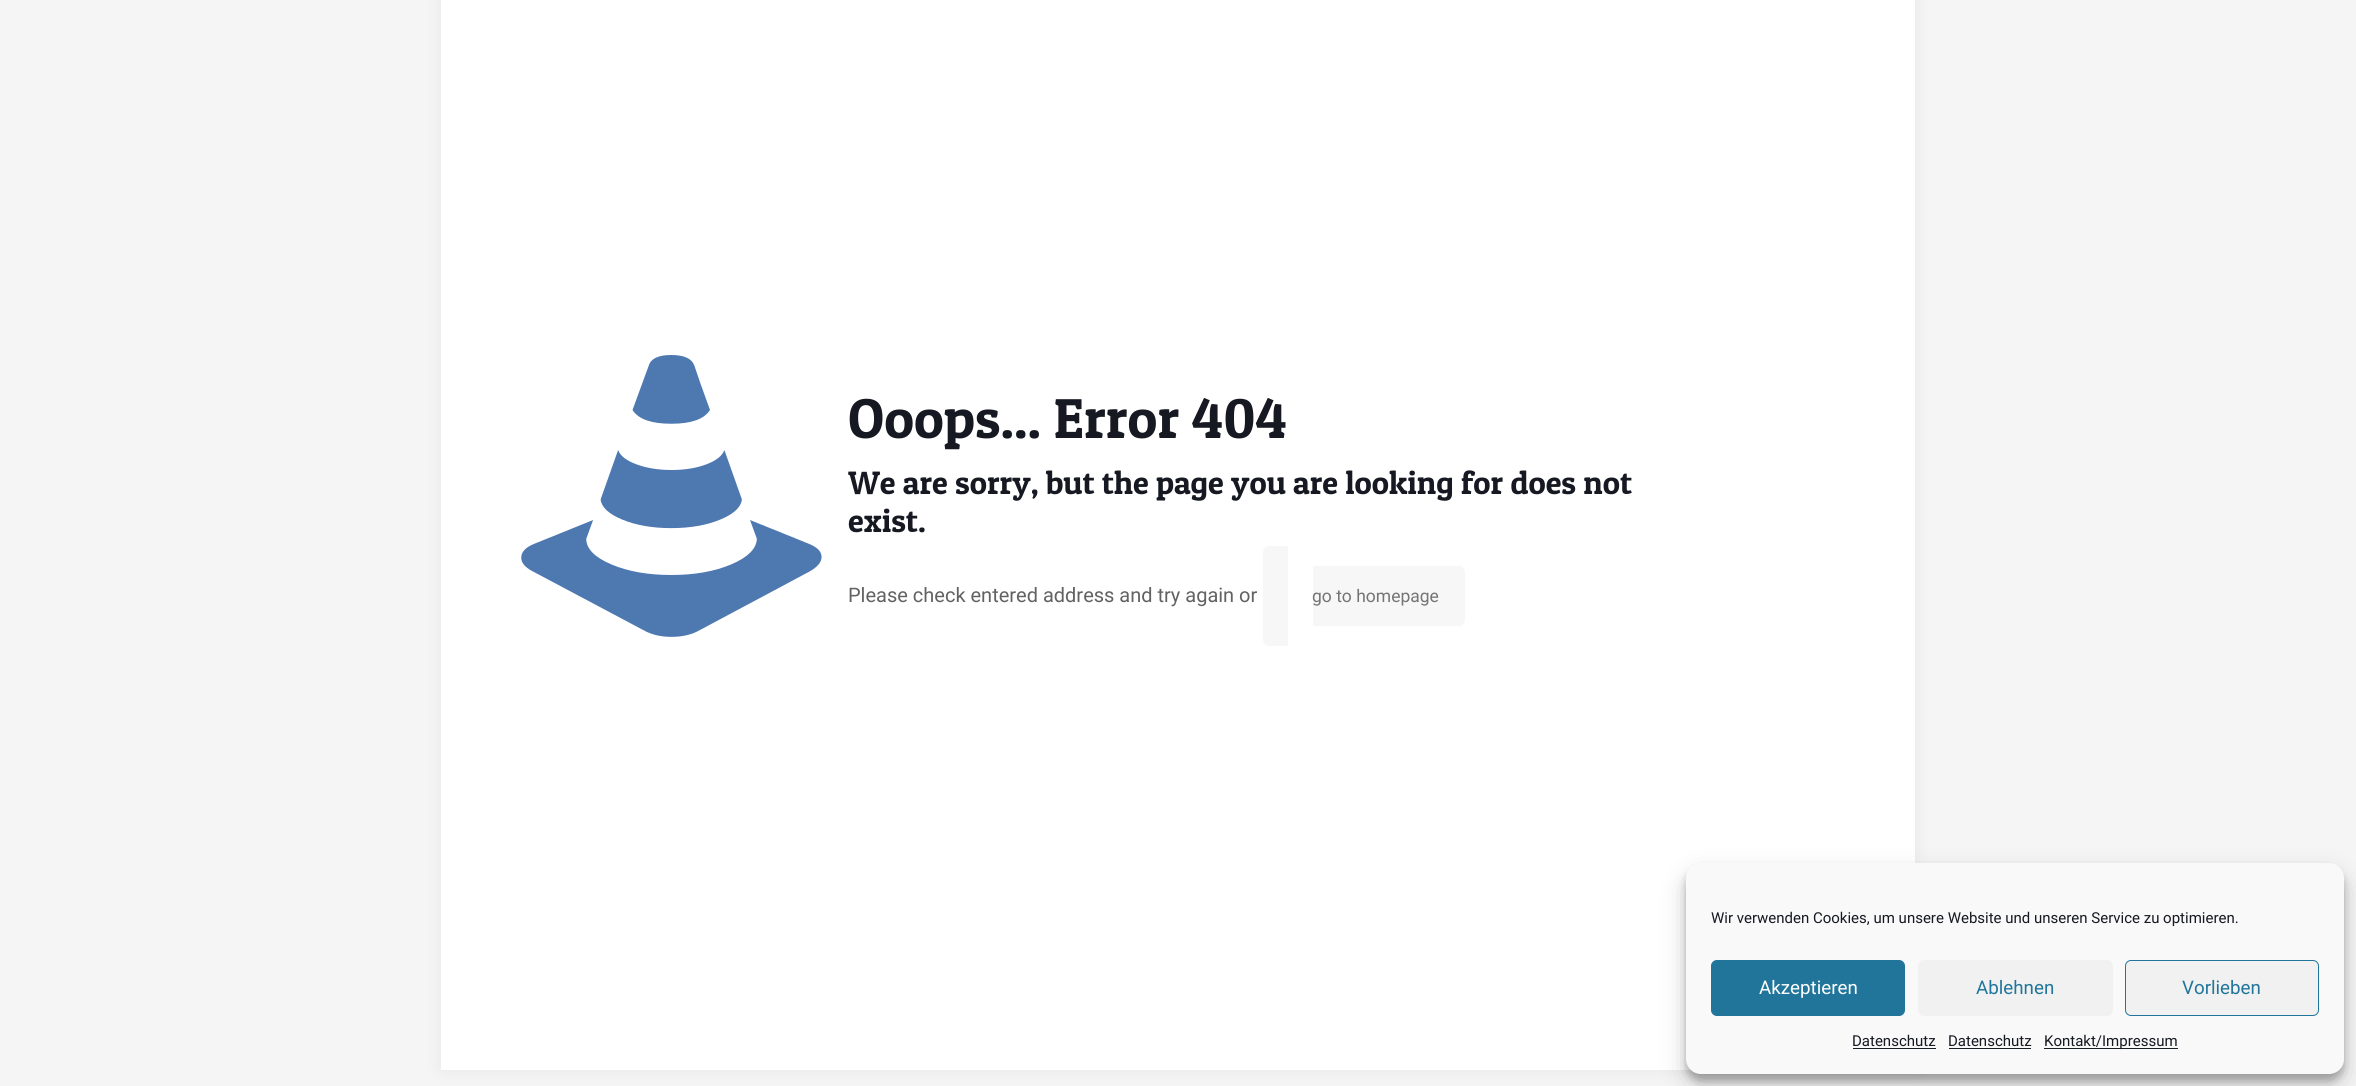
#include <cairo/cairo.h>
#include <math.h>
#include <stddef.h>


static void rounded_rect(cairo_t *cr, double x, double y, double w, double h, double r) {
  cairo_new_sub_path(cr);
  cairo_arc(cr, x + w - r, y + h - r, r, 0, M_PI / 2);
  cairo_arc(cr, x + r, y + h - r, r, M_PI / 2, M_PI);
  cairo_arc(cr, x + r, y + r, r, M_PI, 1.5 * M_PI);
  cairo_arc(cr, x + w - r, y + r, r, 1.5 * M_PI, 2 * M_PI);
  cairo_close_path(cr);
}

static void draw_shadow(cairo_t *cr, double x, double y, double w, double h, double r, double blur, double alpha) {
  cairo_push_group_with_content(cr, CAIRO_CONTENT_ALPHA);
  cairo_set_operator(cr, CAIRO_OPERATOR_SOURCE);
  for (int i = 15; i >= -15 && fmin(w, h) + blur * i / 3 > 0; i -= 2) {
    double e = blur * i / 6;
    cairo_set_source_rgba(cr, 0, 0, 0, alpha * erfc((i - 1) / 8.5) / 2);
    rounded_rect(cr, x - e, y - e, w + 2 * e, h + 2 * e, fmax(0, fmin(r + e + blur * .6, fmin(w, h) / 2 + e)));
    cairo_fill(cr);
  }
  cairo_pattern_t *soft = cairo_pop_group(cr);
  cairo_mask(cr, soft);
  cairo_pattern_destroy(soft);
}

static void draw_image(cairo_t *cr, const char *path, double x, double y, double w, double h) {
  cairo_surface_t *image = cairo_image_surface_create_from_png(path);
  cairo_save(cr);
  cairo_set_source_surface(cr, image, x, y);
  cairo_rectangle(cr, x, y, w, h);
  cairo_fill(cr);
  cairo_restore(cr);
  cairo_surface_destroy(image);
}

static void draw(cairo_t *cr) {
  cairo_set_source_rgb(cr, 245 / 255.0, 245 / 255.0, 245 / 255.0);
  cairo_paint(cr);
  cairo_set_source_rgb(cr, 0, 0, 0);
  draw_shadow(cr, 441, -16, 1474, 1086, 0, 9.5, 0.06);
  cairo_set_source_rgb(cr, 1, 1, 1);
  cairo_rectangle(cr, 441, 0, 1474, 1070);
  cairo_fill(cr);
  draw_image(cr, "images/1.png", 521, 355, 301, 282);
  cairo_set_source_rgb(cr, 247 / 255.0, 247 / 255.0, 247 / 255.0);
  cairo_new_path(cr);
  cairo_move_to(cr, 1269, 546);
  cairo_line_to(cr, 1288, 546);
  cairo_line_to(cr, 1288, 646);
  cairo_line_to(cr, 1269, 646);
  cairo_curve_to(cr, 1265.5, 646, 1263, 643.5, 1263, 640);
  cairo_line_to(cr, 1263, 552);
  cairo_curve_to(cr, 1263, 548.5, 1265.5, 546, 1269, 546);
  cairo_close_path(cr);
  cairo_fill(cr);
  cairo_new_path(cr);
  cairo_move_to(cr, 1313, 566);
  cairo_line_to(cr, 1459, 566);
  cairo_curve_to(cr, 1462.5, 566, 1465, 568.5, 1465, 572);
  cairo_line_to(cr, 1465, 620);
  cairo_curve_to(cr, 1465, 623.5, 1462.5, 626, 1459, 626);
  cairo_line_to(cr, 1313, 626);
  cairo_close_path(cr);
  cairo_fill(cr);
  cairo_set_source_rgb(cr, 0, 0, 0);
  draw_shadow(cr, 1686, 870, 658, 211, 15, 4, 0.23);
  draw_shadow(cr, 1686, 875, 658, 211, 15, 12.5, 0.19);
  cairo_set_source_rgb(cr, 249 / 255.0, 249 / 255.0, 249 / 255.0);
  rounded_rect(cr, 1686, 863, 658, 211, 15);
  cairo_fill(cr);
  cairo_set_source_rgb(cr, 33 / 255.0, 117 / 255.0, 155 / 255.0);
  rounded_rect(cr, 1711.5, 960.5, 193, 55, 5.5);
  cairo_fill_preserve(cr);
  cairo_set_line_width(cr, 1);
  cairo_stroke(cr);
  cairo_set_source_rgb(cr, 241 / 255.0, 241 / 255.0, 241 / 255.0);
  rounded_rect(cr, 1918, 960, 195, 56, 6);
  cairo_fill(cr);
  rounded_rect(cr, 2125.5, 960.5, 193, 55, 5.5);
  cairo_fill_preserve(cr);
  cairo_set_source_rgb(cr, 33 / 255.0, 117 / 255.0, 155 / 255.0);
  cairo_stroke(cr);
  cairo_set_source_rgb(cr, 25 / 255.0, 30 / 255.0, 35 / 255.0);
  cairo_rectangle(cr, 1853, 1048, 83, 1);
  cairo_fill(cr);
  cairo_rectangle(cr, 1949, 1048, 82, 1);
  cairo_fill(cr);
  cairo_rectangle(cr, 2044, 1048, 134, 1);
  cairo_fill(cr);
  cairo_select_font_face(cr, "Patua One", CAIRO_FONT_SLANT_NORMAL, CAIRO_FONT_WEIGHT_NORMAL);
  cairo_set_font_size(cr, 56.25);
  cairo_set_source_rgb(cr, 22 / 255.0, 25 / 255.0, 34 / 255.0);
  cairo_move_to(cr, 848, 438);
  cairo_show_text(cr, "Ooops... Error 404");
  cairo_set_font_size(cr, 32.5);
  cairo_move_to(cr, 848, 494);
  cairo_show_text(cr, "We are sorry, but the page you are looking for does not");
  cairo_move_to(cr, 848, 532);
  cairo_show_text(cr, "exist.");
  cairo_select_font_face(cr, "Roboto", CAIRO_FONT_SLANT_NORMAL, CAIRO_FONT_WEIGHT_NORMAL);
  cairo_set_font_size(cr, 20);
  cairo_set_source_rgb(cr, 98 / 255.0, 98 / 255.0, 98 / 255.0);
  cairo_move_to(cr, 848, 602);
  cairo_show_text(cr, "Please check entered address and try again or");
  cairo_set_font_size(cr, 17.5);
  cairo_set_source_rgb(cr, 116 / 255.0, 116 / 255.0, 116 / 255.0);
  cairo_move_to(cr, 1312, 602);
  cairo_show_text(cr, "go to homepage");
  cairo_set_font_size(cr, 15);
  cairo_set_source_rgb(cr, 22 / 255.0, 25 / 255.0, 34 / 255.0);
  cairo_move_to(cr, 1711, 923);
  cairo_show_text(cr, "Wir verwenden Cookies, um unsere Website und unseren Service zu optimieren.");
  cairo_set_font_size(cr, 18.75);
  cairo_set_source_rgb(cr, 1, 1, 1);
  cairo_move_to(cr, 1759, 994);
  cairo_show_text(cr, "Akzeptieren");
  cairo_set_source_rgb(cr, 33 / 255.0, 117 / 255.0, 155 / 255.0);
  cairo_move_to(cr, 1976, 994);
  cairo_show_text(cr, "Ablehnen");
  cairo_move_to(cr, 2182, 994);
  cairo_show_text(cr, "Vorlieben");
  cairo_set_font_size(cr, 15);
  cairo_set_source_rgb(cr, 22 / 255.0, 25 / 255.0, 34 / 255.0);
  cairo_move_to(cr, 1852, 1046);
  cairo_show_text(cr, "Datenschutz");
  cairo_move_to(cr, 1948, 1046);
  cairo_show_text(cr, "Datenschutz");
  cairo_move_to(cr, 2044, 1046);
  cairo_show_text(cr, "Kontakt/Impressum");
}

int main(void) {
  cairo_surface_t *surface = cairo_image_surface_create(CAIRO_FORMAT_RGB24, 2356, 1086);
  cairo_t *cr = cairo_create(surface);
  cairo_font_options_t *options = cairo_font_options_create();
  cairo_font_options_set_hint_metrics(options, CAIRO_HINT_METRICS_OFF);
  cairo_font_options_set_hint_style(options, CAIRO_HINT_STYLE_NONE);
  cairo_set_font_options(cr, options);
  cairo_set_miter_limit(cr, 4);
  draw(cr);
  cairo_surface_write_to_png(surface, "out.png");
  cairo_font_options_destroy(options);
  cairo_destroy(cr);
  cairo_surface_destroy(surface);
  return 0;
}
